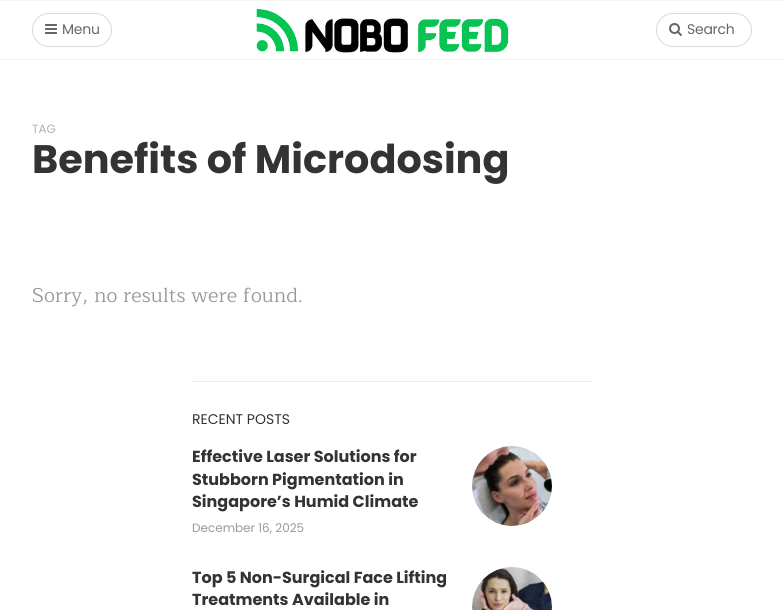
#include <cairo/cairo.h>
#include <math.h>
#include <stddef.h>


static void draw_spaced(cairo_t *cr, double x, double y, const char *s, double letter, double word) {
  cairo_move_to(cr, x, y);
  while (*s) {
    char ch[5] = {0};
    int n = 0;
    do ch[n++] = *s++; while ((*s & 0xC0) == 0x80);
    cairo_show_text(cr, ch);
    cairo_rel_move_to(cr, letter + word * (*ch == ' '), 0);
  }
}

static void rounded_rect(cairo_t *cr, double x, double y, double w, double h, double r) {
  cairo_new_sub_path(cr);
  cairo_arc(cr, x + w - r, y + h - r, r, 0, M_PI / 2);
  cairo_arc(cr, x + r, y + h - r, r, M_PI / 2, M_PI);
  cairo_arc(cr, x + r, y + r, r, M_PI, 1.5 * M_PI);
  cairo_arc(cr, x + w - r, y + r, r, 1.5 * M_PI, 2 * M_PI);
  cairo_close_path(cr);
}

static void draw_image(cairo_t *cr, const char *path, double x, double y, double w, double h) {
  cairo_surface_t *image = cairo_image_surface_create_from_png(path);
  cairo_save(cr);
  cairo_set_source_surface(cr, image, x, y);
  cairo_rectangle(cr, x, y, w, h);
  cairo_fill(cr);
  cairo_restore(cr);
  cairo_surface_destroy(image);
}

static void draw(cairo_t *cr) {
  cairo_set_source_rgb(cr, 1, 1, 1);
  cairo_paint(cr);
  cairo_set_source_rgb(cr, 245 / 255.0, 245 / 255.0, 245 / 255.0);
  cairo_rectangle(cr, 0, 0, 784, 1);
  cairo_fill(cr);
  cairo_rectangle(cr, 0, 59, 784, 1);
  cairo_fill(cr);
  rounded_rect(cr, 32.5, 13.5, 79, 33, 16.5);
  cairo_set_source_rgb(cr, 217 / 255.0, 217 / 255.0, 217 / 255.0);
  cairo_set_line_width(cr, 1);
  cairo_stroke(cr);
  draw_image(cr, "images/1.png", 45, 24, 12, 10);
  draw_image(cr, "images/2.png", 256, 8, 253, 46);
  rounded_rect(cr, 656.5, 13.5, 95, 33, 16.5);
  cairo_stroke(cr);
  draw_image(cr, "images/3.png", 669, 23, 13, 13);
  cairo_set_source_rgb(cr, 238 / 255.0, 238 / 255.0, 238 / 255.0);
  cairo_rectangle(cr, 192, 381, 400, 1);
  cairo_fill(cr);
  draw_image(cr, "images/4.png", 472, 446, 80, 80);
  draw_image(cr, "images/5.png", 472, 567, 80, 43);
  cairo_select_font_face(cr, "Poppins", CAIRO_FONT_SLANT_NORMAL, CAIRO_FONT_WEIGHT_NORMAL);
  cairo_set_font_size(cr, 14);
  cairo_set_source_rgb(cr, 102 / 255.0, 102 / 255.0, 102 / 255.0);
  draw_spaced(cr, 62, 34, "Menu", -0.25, 0);
  draw_spaced(cr, 687, 34, "Search", -0.25, 0);
  cairo_set_font_size(cr, 12);
  cairo_set_source_rgb(cr, 179 / 255.0, 179 / 255.0, 179 / 255.0);
  cairo_move_to(cr, 32, 133);
  cairo_show_text(cr, "TAG");
  cairo_select_font_face(cr, "Poppins", CAIRO_FONT_SLANT_NORMAL, CAIRO_FONT_WEIGHT_BOLD);
  cairo_set_font_size(cr, 39.75);
  cairo_set_source_rgb(cr, 51 / 255.0, 51 / 255.0, 51 / 255.0);
  cairo_move_to(cr, 32, 173);
  cairo_show_text(cr, "Benefits of Microdosing");
  cairo_select_font_face(cr, "Maitree", CAIRO_FONT_SLANT_NORMAL, CAIRO_FONT_WEIGHT_NORMAL);
  cairo_set_font_size(cr, 20);
  cairo_set_source_rgb(cr, 153 / 255.0, 153 / 255.0, 153 / 255.0);
  cairo_move_to(cr, 32, 302);
  cairo_show_text(cr, "Sorry, no results were found.");
  cairo_select_font_face(cr, "Poppins", CAIRO_FONT_SLANT_NORMAL, CAIRO_FONT_WEIGHT_NORMAL);
  cairo_set_font_size(cr, 14);
  cairo_set_source_rgb(cr, 51 / 255.0, 51 / 255.0, 51 / 255.0);
  cairo_move_to(cr, 192, 424);
  cairo_show_text(cr, "RECENT POSTS");
  cairo_select_font_face(cr, "Poppins", CAIRO_FONT_SLANT_NORMAL, CAIRO_FONT_WEIGHT_BOLD);
  cairo_set_font_size(cr, 16);
  cairo_move_to(cr, 192, 462);
  cairo_show_text(cr, "Effective Laser Solutions for");
  cairo_move_to(cr, 192, 485);
  cairo_show_text(cr, "Stubborn Pigmentation in");
  cairo_move_to(cr, 192, 507);
  cairo_show_text(cr, "Singapore’s Humid Climate");
  cairo_select_font_face(cr, "Poppins", CAIRO_FONT_SLANT_NORMAL, CAIRO_FONT_WEIGHT_NORMAL);
  cairo_set_font_size(cr, 12);
  cairo_set_source_rgb(cr, 153 / 255.0, 153 / 255.0, 153 / 255.0);
  cairo_move_to(cr, 192, 532);
  cairo_show_text(cr, "December 16, 2025");
  cairo_select_font_face(cr, "Poppins", CAIRO_FONT_SLANT_NORMAL, CAIRO_FONT_WEIGHT_BOLD);
  cairo_set_font_size(cr, 16);
  cairo_set_source_rgb(cr, 51 / 255.0, 51 / 255.0, 51 / 255.0);
  cairo_move_to(cr, 192, 583);
  cairo_show_text(cr, "Top 5 Non-Surgical Face Lifting");
  cairo_move_to(cr, 192, 605);
  cairo_show_text(cr, "Treatments Available in");
}

int main(void) {
  cairo_surface_t *surface = cairo_image_surface_create(CAIRO_FORMAT_RGB24, 784, 610);
  cairo_t *cr = cairo_create(surface);
  cairo_font_options_t *options = cairo_font_options_create();
  cairo_font_options_set_hint_metrics(options, CAIRO_HINT_METRICS_OFF);
  cairo_font_options_set_hint_style(options, CAIRO_HINT_STYLE_NONE);
  cairo_set_font_options(cr, options);
  cairo_set_miter_limit(cr, 4);
  draw(cr);
  cairo_surface_write_to_png(surface, "out.png");
  cairo_font_options_destroy(options);
  cairo_destroy(cr);
  cairo_surface_destroy(surface);
  return 0;
}
